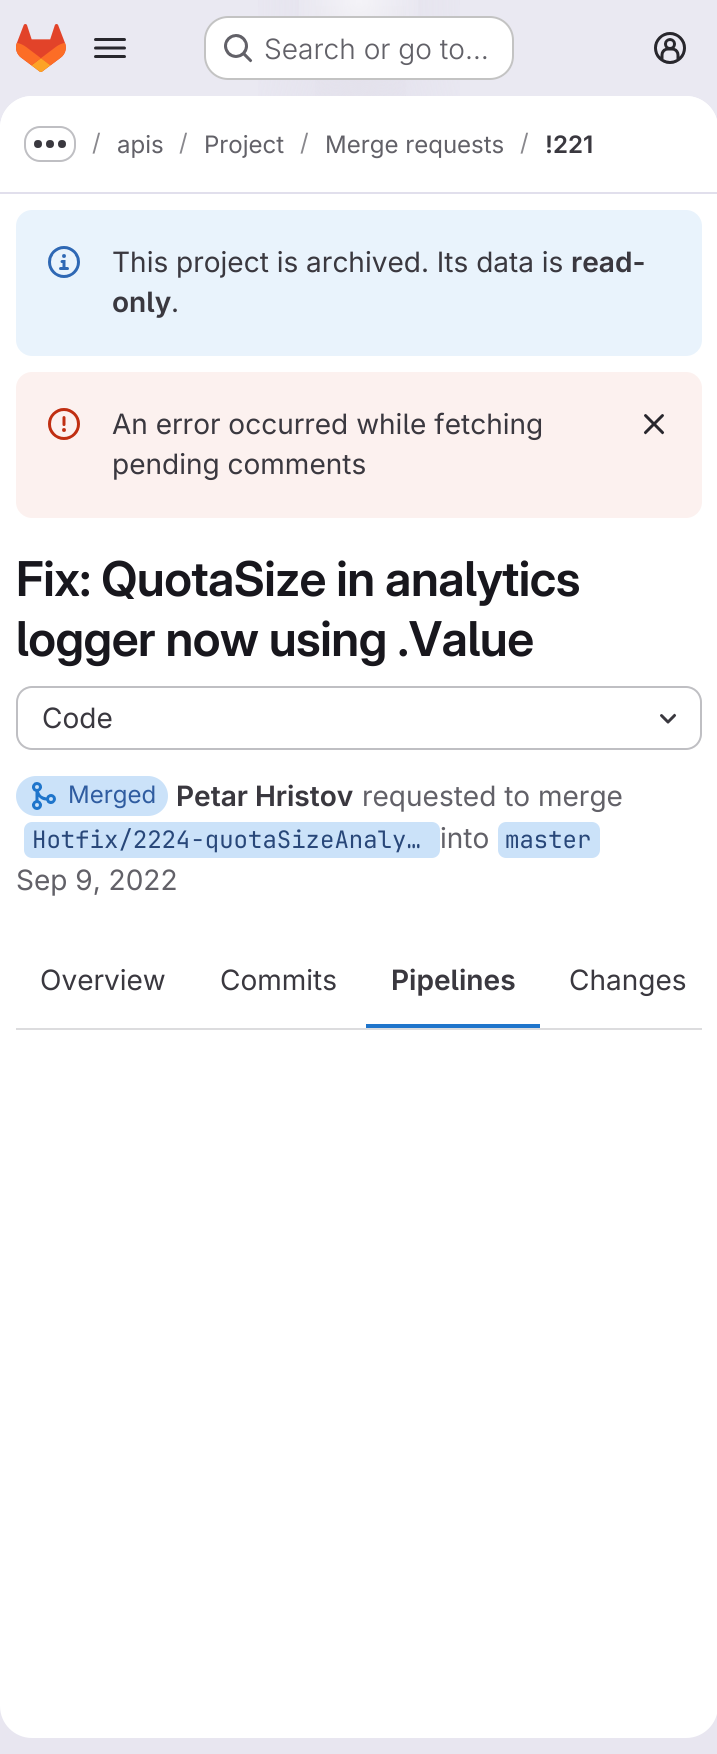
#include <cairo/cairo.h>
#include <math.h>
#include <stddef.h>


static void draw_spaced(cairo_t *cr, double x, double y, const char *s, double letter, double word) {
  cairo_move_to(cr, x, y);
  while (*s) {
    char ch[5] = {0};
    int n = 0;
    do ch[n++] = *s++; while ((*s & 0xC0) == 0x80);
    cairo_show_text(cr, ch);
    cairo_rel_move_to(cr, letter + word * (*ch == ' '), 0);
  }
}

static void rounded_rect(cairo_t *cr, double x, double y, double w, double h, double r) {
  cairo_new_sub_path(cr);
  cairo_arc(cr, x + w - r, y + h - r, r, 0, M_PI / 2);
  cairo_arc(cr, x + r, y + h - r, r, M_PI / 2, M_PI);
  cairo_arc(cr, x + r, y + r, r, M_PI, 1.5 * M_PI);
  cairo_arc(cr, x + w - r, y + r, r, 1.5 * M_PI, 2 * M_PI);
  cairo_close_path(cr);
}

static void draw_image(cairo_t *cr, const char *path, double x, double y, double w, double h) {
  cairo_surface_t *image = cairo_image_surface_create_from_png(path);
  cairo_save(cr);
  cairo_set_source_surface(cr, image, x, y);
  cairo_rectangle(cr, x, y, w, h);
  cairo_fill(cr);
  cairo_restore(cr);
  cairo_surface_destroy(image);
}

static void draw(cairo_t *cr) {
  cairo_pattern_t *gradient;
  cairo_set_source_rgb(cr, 1, 1, 1);
  cairo_paint(cr);
  gradient = cairo_pattern_create_linear(520, 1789, 198, -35);
  cairo_pattern_add_color_stop_rgba(gradient, 0, 232 / 255.0, 230 / 255.0, 240 / 255.0, 1);
  cairo_pattern_add_color_stop_rgba(gradient, 0.7, 234 / 255.0, 233 / 255.0, 242 / 255.0, 1);
  cairo_set_source(cr, gradient);
  cairo_pattern_destroy(gradient);
  cairo_rectangle(cr, 0, 0, 717, 1754);
  cairo_fill(cr);
  gradient = cairo_pattern_create_radial(0, 0, 0, 0, 0, 1);
  cairo_pattern_set_matrix(gradient, &(cairo_matrix_t){1.0 / 359, 0, 0, 1.0 / 1754, -1.0 * 359 / 359, -1.0 * 0 / 1754});
  cairo_pattern_add_color_stop_rgba(gradient, 0, 228 / 255.0, 226 / 255.0, 237 / 255.0, 1);
  cairo_pattern_add_color_stop_rgba(gradient, 0.39, 228 / 255.0, 226 / 255.0, 237 / 255.0, 0);
  cairo_set_source(cr, gradient);
  cairo_pattern_destroy(gradient);
  cairo_rectangle(cr, 258, 0, 202, 96);
  cairo_fill(cr);
  gradient = cairo_pattern_create_radial(0, 0, 0, 0, 0, 1);
  cairo_pattern_set_matrix(gradient, &(cairo_matrix_t){1.0 / 359, 0, 0, 1.0 / 1754, -1.0 * 359 / 359, -1.0 * 0 / 1754});
  cairo_pattern_add_color_stop_rgba(gradient, 0, 228 / 255.0, 226 / 255.0, 236 / 255.0, 1);
  cairo_pattern_add_color_stop_rgba(gradient, 0.28, 228 / 255.0, 226 / 255.0, 236 / 255.0, 0);
  cairo_set_source(cr, gradient);
  cairo_pattern_destroy(gradient);
  cairo_rectangle(cr, 315, 6, 91, 90);
  cairo_fill(cr);
  gradient = cairo_pattern_create_radial(359, 0, 0, 359, 0, 1790);
  cairo_pattern_add_color_stop_rgba(gradient, 0, 1, 1, 1, 0.6);
  cairo_pattern_add_color_stop_rgba(gradient, 0.04, 1, 1, 1, 0);
  cairo_set_source(cr, gradient);
  cairo_pattern_destroy(gradient);
  cairo_rectangle(cr, 299, 0, 119, 16);
  cairo_fill(cr);
  draw_image(cr, "images/1.png", 16, 24, 50, 48);
  draw_image(cr, "images/2.png", 94, 38, 32, 20);
  cairo_set_source_rgb(cr, 1, 1, 1);
  rounded_rect(cr, 204, 16, 310, 64, 24);
  cairo_fill(cr);
  rounded_rect(cr, 205, 17, 308, 62, 23);
  cairo_set_source_rgba(cr, 5 / 255.0, 5 / 255.0, 6 / 255.0, 0.24);
  cairo_stroke(cr);
  draw_image(cr, "images/3.png", 224, 34, 29, 29);
  draw_image(cr, "images/4.png", 654, 32, 32, 32);
  cairo_set_source_rgb(cr, 1, 1, 1);
  rounded_rect(cr, 0, 96, 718, 1642, 32);
  cairo_fill(cr);
  cairo_new_path(cr);
  cairo_move_to(cr, 32, 96);
  cairo_line_to(cr, 686, 96);
  cairo_curve_to(cr, 703.5, 96, 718, 110.5, 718, 128);
  cairo_line_to(cr, 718, 194);
  cairo_line_to(cr, 0, 194);
  cairo_line_to(cr, 0, 128);
  cairo_curve_to(cr, 0, 110.5, 14.5, 96, 32, 96);
  cairo_close_path(cr);
  cairo_fill(cr);
  cairo_set_source_rgb(cr, 225 / 255.0, 223 / 255.0, 236 / 255.0);
  cairo_rectangle(cr, 0, 192, 717, 2);
  cairo_fill(cr);
  rounded_rect(cr, 25, 127, 50, 34, 15);
  cairo_set_source_rgb(cr, 191 / 255.0, 191 / 255.0, 195 / 255.0);
  cairo_stroke(cr);
  draw_image(cr, "images/5.png", 34, 140, 32, 8);
  cairo_set_source_rgb(cr, 233 / 255.0, 243 / 255.0, 252 / 255.0);
  rounded_rect(cr, 16, 210, 686, 146, 16);
  cairo_fill(cr);
  draw_image(cr, "images/6.png", 48, 246, 32, 32);
  cairo_set_source_rgb(cr, 252 / 255.0, 241 / 255.0, 239 / 255.0);
  rounded_rect(cr, 16, 372, 686, 146, 16);
  cairo_fill(cr);
  draw_image(cr, "images/7.png", 48, 408, 32, 32);
  draw_image(cr, "images/8.png", 643, 414, 22, 21);
  rounded_rect(cr, 17, 687, 684, 62, 15);
  cairo_set_source_rgb(cr, 191 / 255.0, 191 / 255.0, 195 / 255.0);
  cairo_stroke(cr);
  draw_image(cr, "images/9.png", 660, 713, 17, 11);
  cairo_set_source_rgb(cr, 220 / 255.0, 220 / 255.0, 222 / 255.0);
  cairo_rectangle(cr, 16, 1028, 686, 2);
  cairo_fill(cr);
  cairo_set_source_rgb(cr, 203 / 255.0, 226 / 255.0, 249 / 255.0);
  rounded_rect(cr, 16, 776, 152, 40, 20);
  cairo_fill(cr);
  draw_image(cr, "images/10.png", 32, 782, 24, 28);
  rounded_rect(cr, 24, 822, 416, 36, 8);
  cairo_fill(cr);
  rounded_rect(cr, 498, 822, 102, 36, 8);
  cairo_fill(cr);
  cairo_set_source_rgb(cr, 31 / 255.0, 117 / 255.0, 203 / 255.0);
  cairo_rectangle(cr, 366, 1024, 174, 4);
  cairo_fill(cr);
  cairo_select_font_face(cr, "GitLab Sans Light", CAIRO_FONT_SLANT_NORMAL, CAIRO_FONT_WEIGHT_NORMAL);
  cairo_set_font_size(cr, 28);
  cairo_set_source_rgb(cr, 98 / 255.0, 97 / 255.0, 104 / 255.0);
  cairo_move_to(cr, 264, 59);
  cairo_show_text(cr, "Search or go to…");
  cairo_select_font_face(cr, "GitLab Sans", CAIRO_FONT_SLANT_NORMAL, CAIRO_FONT_WEIGHT_NORMAL);
  cairo_set_font_size(cr, 24);
  cairo_set_source_rgb(cr, 137 / 255.0, 136 / 255.0, 141 / 255.0);
  cairo_move_to(cr, 92, 151);
  cairo_show_text(cr, "/");
  cairo_set_source_rgb(cr, 98 / 255.0, 97 / 255.0, 104 / 255.0);
  cairo_move_to(cr, 117, 153);
  cairo_show_text(cr, "apis");
  cairo_set_source_rgb(cr, 137 / 255.0, 136 / 255.0, 141 / 255.0);
  cairo_move_to(cr, 179, 151);
  cairo_show_text(cr, "/");
  cairo_set_source_rgb(cr, 98 / 255.0, 97 / 255.0, 104 / 255.0);
  cairo_move_to(cr, 204, 153);
  cairo_show_text(cr, "Project");
  cairo_set_source_rgb(cr, 137 / 255.0, 136 / 255.0, 141 / 255.0);
  cairo_move_to(cr, 300, 151);
  cairo_show_text(cr, "/");
  cairo_set_source_rgb(cr, 98 / 255.0, 97 / 255.0, 104 / 255.0);
  cairo_move_to(cr, 325, 153);
  cairo_show_text(cr, "Merge requests");
  cairo_set_source_rgb(cr, 137 / 255.0, 136 / 255.0, 141 / 255.0);
  cairo_move_to(cr, 520, 151);
  cairo_show_text(cr, "/");
  cairo_select_font_face(cr, "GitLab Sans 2 SemiBold", CAIRO_FONT_SLANT_NORMAL, CAIRO_FONT_WEIGHT_NORMAL);
  cairo_set_source_rgb(cr, 58 / 255.0, 56 / 255.0, 63 / 255.0);
  cairo_move_to(cr, 545, 153);
  cairo_show_text(cr, "!221");
  cairo_select_font_face(cr, "GitLab Sans", CAIRO_FONT_SLANT_NORMAL, CAIRO_FONT_WEIGHT_NORMAL);
  cairo_set_font_size(cr, 28);
  cairo_move_to(cr, 112, 272);
  cairo_show_text(cr, "This project is archived. Its data is");
  cairo_select_font_face(cr, "GitLab Sans 2 SemiBold", CAIRO_FONT_SLANT_NORMAL, CAIRO_FONT_WEIGHT_NORMAL);
  cairo_move_to(cr, 571, 272);
  cairo_show_text(cr, "read-");
  cairo_move_to(cr, 112, 312);
  cairo_show_text(cr, "only");
  cairo_select_font_face(cr, "GitLab Sans", CAIRO_FONT_SLANT_NORMAL, CAIRO_FONT_WEIGHT_NORMAL);
  cairo_move_to(cr, 171, 312);
  cairo_show_text(cr, ".");
  cairo_move_to(cr, 112, 434);
  cairo_show_text(cr, "An error occurred while fetching");
  cairo_move_to(cr, 112, 474);
  cairo_show_text(cr, "pending comments");
  cairo_select_font_face(cr, "GitLab Sans SemiBold", CAIRO_FONT_SLANT_NORMAL, CAIRO_FONT_WEIGHT_NORMAL);
  cairo_set_font_size(cr, 48);
  cairo_set_source_rgb(cr, 24 / 255.0, 23 / 255.0, 29 / 255.0);
  draw_spaced(cr, 16, 596, "Fix: QuotaSize in analytics", -0.5, 0);
  draw_spaced(cr, 16, 656, "logger now using .Value", -0.5, 0);
  cairo_select_font_face(cr, "GitLab Sans", CAIRO_FONT_SLANT_NORMAL, CAIRO_FONT_WEIGHT_NORMAL);
  cairo_set_font_size(cr, 28);
  cairo_set_source_rgb(cr, 58 / 255.0, 56 / 255.0, 63 / 255.0);
  cairo_move_to(cr, 42, 728);
  cairo_show_text(cr, "Code");
  cairo_set_font_size(cr, 24);
  cairo_set_source_rgb(cr, 47 / 255.0, 92 / 255.0, 160 / 255.0);
  cairo_move_to(cr, 68, 803);
  cairo_show_text(cr, "Merged");
  cairo_select_font_face(cr, "GitLab Sans 2 SemiBold", CAIRO_FONT_SLANT_NORMAL, CAIRO_FONT_WEIGHT_NORMAL);
  cairo_set_font_size(cr, 28);
  cairo_set_source_rgb(cr, 58 / 255.0, 56 / 255.0, 63 / 255.0);
  cairo_move_to(cr, 176, 806);
  cairo_show_text(cr, "Petar Hristov");
  cairo_select_font_face(cr, "GitLab Sans", CAIRO_FONT_SLANT_NORMAL, CAIRO_FONT_WEIGHT_NORMAL);
  cairo_set_source_rgb(cr, 98 / 255.0, 97 / 255.0, 104 / 255.0);
  cairo_move_to(cr, 362, 806);
  cairo_show_text(cr, "requested to merge");
  cairo_select_font_face(cr, "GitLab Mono", CAIRO_FONT_SLANT_NORMAL, CAIRO_FONT_WEIGHT_NORMAL);
  cairo_set_font_size(cr, 24);
  cairo_set_source_rgb(cr, 40 / 255.0, 71 / 255.0, 121 / 255.0);
  cairo_move_to(cr, 32, 848);
  cairo_show_text(cr, "Hotfix/2224-quotaSizeAnaly…");
  cairo_select_font_face(cr, "GitLab Sans", CAIRO_FONT_SLANT_NORMAL, CAIRO_FONT_WEIGHT_NORMAL);
  cairo_set_font_size(cr, 28);
  cairo_set_source_rgb(cr, 98 / 255.0, 97 / 255.0, 104 / 255.0);
  cairo_move_to(cr, 440, 848);
  cairo_show_text(cr, "into");
  cairo_select_font_face(cr, "GitLab Mono", CAIRO_FONT_SLANT_NORMAL, CAIRO_FONT_WEIGHT_NORMAL);
  cairo_set_font_size(cr, 24);
  cairo_set_source_rgb(cr, 40 / 255.0, 71 / 255.0, 121 / 255.0);
  cairo_move_to(cr, 505, 848);
  cairo_show_text(cr, "master");
  cairo_select_font_face(cr, "GitLab Sans", CAIRO_FONT_SLANT_NORMAL, CAIRO_FONT_WEIGHT_NORMAL);
  cairo_set_font_size(cr, 28);
  cairo_set_source_rgb(cr, 98 / 255.0, 97 / 255.0, 104 / 255.0);
  cairo_move_to(cr, 16, 890);
  cairo_show_text(cr, "Sep 9, 2022");
  cairo_set_source_rgb(cr, 58 / 255.0, 56 / 255.0, 63 / 255.0);
  cairo_move_to(cr, 40, 990);
  cairo_show_text(cr, "Overview");
  cairo_move_to(cr, 220, 990);
  cairo_show_text(cr, "Commits");
  cairo_select_font_face(cr, "GitLab Sans 2 SemiBold", CAIRO_FONT_SLANT_NORMAL, CAIRO_FONT_WEIGHT_NORMAL);
  cairo_move_to(cr, 391, 990);
  cairo_show_text(cr, "Pipelines");
  cairo_select_font_face(cr, "GitLab Sans", CAIRO_FONT_SLANT_NORMAL, CAIRO_FONT_WEIGHT_NORMAL);
  cairo_move_to(cr, 569, 990);
  cairo_show_text(cr, "Changes");
}

int main(void) {
  cairo_surface_t *surface = cairo_image_surface_create(CAIRO_FORMAT_RGB24, 717, 1754);
  cairo_t *cr = cairo_create(surface);
  cairo_font_options_t *options = cairo_font_options_create();
  cairo_font_options_set_hint_metrics(options, CAIRO_HINT_METRICS_OFF);
  cairo_font_options_set_hint_style(options, CAIRO_HINT_STYLE_NONE);
  cairo_set_font_options(cr, options);
  cairo_set_miter_limit(cr, 4);
  draw(cr);
  cairo_surface_write_to_png(surface, "out.png");
  cairo_font_options_destroy(options);
  cairo_destroy(cr);
  cairo_surface_destroy(surface);
  return 0;
}
